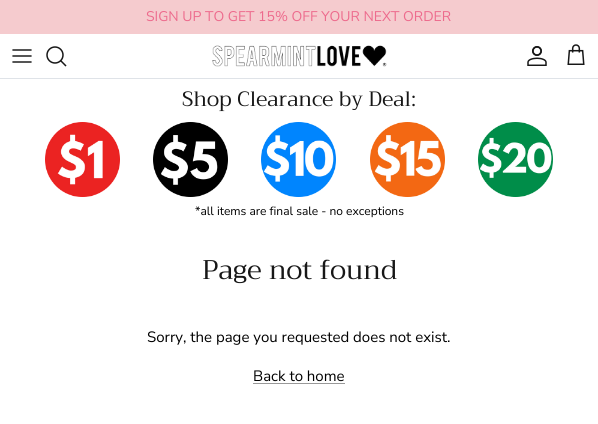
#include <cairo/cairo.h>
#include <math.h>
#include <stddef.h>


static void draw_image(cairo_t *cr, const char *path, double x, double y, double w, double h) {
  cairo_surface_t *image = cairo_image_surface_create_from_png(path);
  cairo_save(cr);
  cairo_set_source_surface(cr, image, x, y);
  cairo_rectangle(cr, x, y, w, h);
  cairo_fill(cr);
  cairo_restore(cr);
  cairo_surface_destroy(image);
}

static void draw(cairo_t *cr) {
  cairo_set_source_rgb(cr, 1, 1, 1);
  cairo_paint(cr);
  cairo_set_source_rgb(cr, 245 / 255.0, 203 / 255.0, 206 / 255.0);
  cairo_rectangle(cr, 0, 0, 598, 34);
  cairo_fill(cr);
  cairo_set_source_rgb(cr, 223 / 255.0, 227 / 255.0, 232 / 255.0);
  cairo_rectangle(cr, 0, 78, 598, 1);
  cairo_fill(cr);
  cairo_new_path(cr);
  cairo_move_to(cr, 13, 56);
  cairo_line_to(cr, 31, 56);
  cairo_move_to(cr, 13, 50);
  cairo_line_to(cr, 31, 50);
  cairo_move_to(cr, 13, 62);
  cairo_line_to(cr, 31, 62);
  cairo_set_source_rgb(cr, 23 / 255.0, 23 / 255.0, 23 / 255.0);
  cairo_set_line_width(cr, 1.5);
  cairo_set_line_cap(cr, CAIRO_LINE_CAP_ROUND);
  cairo_set_line_join(cr, CAIRO_LINE_JOIN_ROUND);
  cairo_stroke(cr);
  cairo_arc(cr, 55, 55, 8, 0, 2 * M_PI);
  cairo_set_line_cap(cr, CAIRO_LINE_CAP_BUTT);
  cairo_set_line_join(cr, CAIRO_LINE_JOIN_MITER);
  cairo_stroke(cr);
  cairo_new_path(cr);
  cairo_move_to(cr, 61, 61);
  cairo_line_to(cr, 65.5, 65.5);
  cairo_set_line_cap(cr, CAIRO_LINE_CAP_SQUARE);
  cairo_stroke(cr);
  draw_image(cr, "images/1.png", 212, 45, 175, 22);
  draw_image(cr, "images/2.png", 527, 46, 20, 20);
  draw_image(cr, "images/3.png", 567, 44, 18, 21);
  draw_image(cr, "images/4.png", 45, 122, 75, 75);
  draw_image(cr, "images/5.png", 153, 122, 75, 75);
  draw_image(cr, "images/6.png", 261, 122, 75, 75);
  draw_image(cr, "images/7.png", 370, 122, 75, 75);
  draw_image(cr, "images/8.png", 478, 122, 75, 75);
  cairo_set_source_rgb(cr, 153 / 255.0, 153 / 255.0, 153 / 255.0);
  cairo_rectangle(cr, 253, 383, 92, 1);
  cairo_fill(cr);
  cairo_select_font_face(cr, "Nunito Sans", CAIRO_FONT_SLANT_NORMAL, CAIRO_FONT_WEIGHT_NORMAL);
  cairo_set_font_size(cr, 14);
  cairo_set_source_rgb(cr, 237 / 255.0, 107 / 255.0, 141 / 255.0);
  cairo_move_to(cr, 146, 21);
  cairo_show_text(cr, "SIGN UP TO GET 15% OFF YOUR NEXT ORDER");
  cairo_select_font_face(cr, "Trirong", CAIRO_FONT_SLANT_NORMAL, CAIRO_FONT_WEIGHT_NORMAL);
  cairo_set_font_size(cr, 20.75);
  cairo_set_source_rgb(cr, 23 / 255.0, 23 / 255.0, 23 / 255.0);
  cairo_move_to(cr, 182, 106);
  cairo_show_text(cr, "Shop Clearance by Deal:");
  cairo_select_font_face(cr, "Nunito Sans", CAIRO_FONT_SLANT_NORMAL, CAIRO_FONT_WEIGHT_NORMAL);
  cairo_set_font_size(cr, 12);
  cairo_set_source_rgb(cr, 0, 0, 0);
  cairo_move_to(cr, 195, 215);
  cairo_show_text(cr, "*all items are final sale - no exceptions");
  cairo_select_font_face(cr, "Trirong", CAIRO_FONT_SLANT_NORMAL, CAIRO_FONT_WEIGHT_NORMAL);
  cairo_set_font_size(cr, 27);
  cairo_set_source_rgb(cr, 23 / 255.0, 23 / 255.0, 23 / 255.0);
  cairo_move_to(cr, 202, 279);
  cairo_show_text(cr, "Page not found");
  cairo_select_font_face(cr, "Nunito Sans", CAIRO_FONT_SLANT_NORMAL, CAIRO_FONT_WEIGHT_NORMAL);
  cairo_set_font_size(cr, 15);
  cairo_set_source_rgb(cr, 0, 0, 0);
  cairo_move_to(cr, 147, 342);
  cairo_show_text(cr, "Sorry, the page you requested does not exist.");
  cairo_move_to(cr, 253, 381);
  cairo_show_text(cr, "Back to home");
}

int main(void) {
  cairo_surface_t *surface = cairo_image_surface_create(CAIRO_FORMAT_RGB24, 598, 424);
  cairo_t *cr = cairo_create(surface);
  cairo_font_options_t *options = cairo_font_options_create();
  cairo_font_options_set_hint_metrics(options, CAIRO_HINT_METRICS_OFF);
  cairo_font_options_set_hint_style(options, CAIRO_HINT_STYLE_NONE);
  cairo_set_font_options(cr, options);
  cairo_set_miter_limit(cr, 4);
  draw(cr);
  cairo_surface_write_to_png(surface, "out.png");
  cairo_font_options_destroy(options);
  cairo_destroy(cr);
  cairo_surface_destroy(surface);
  return 0;
}
